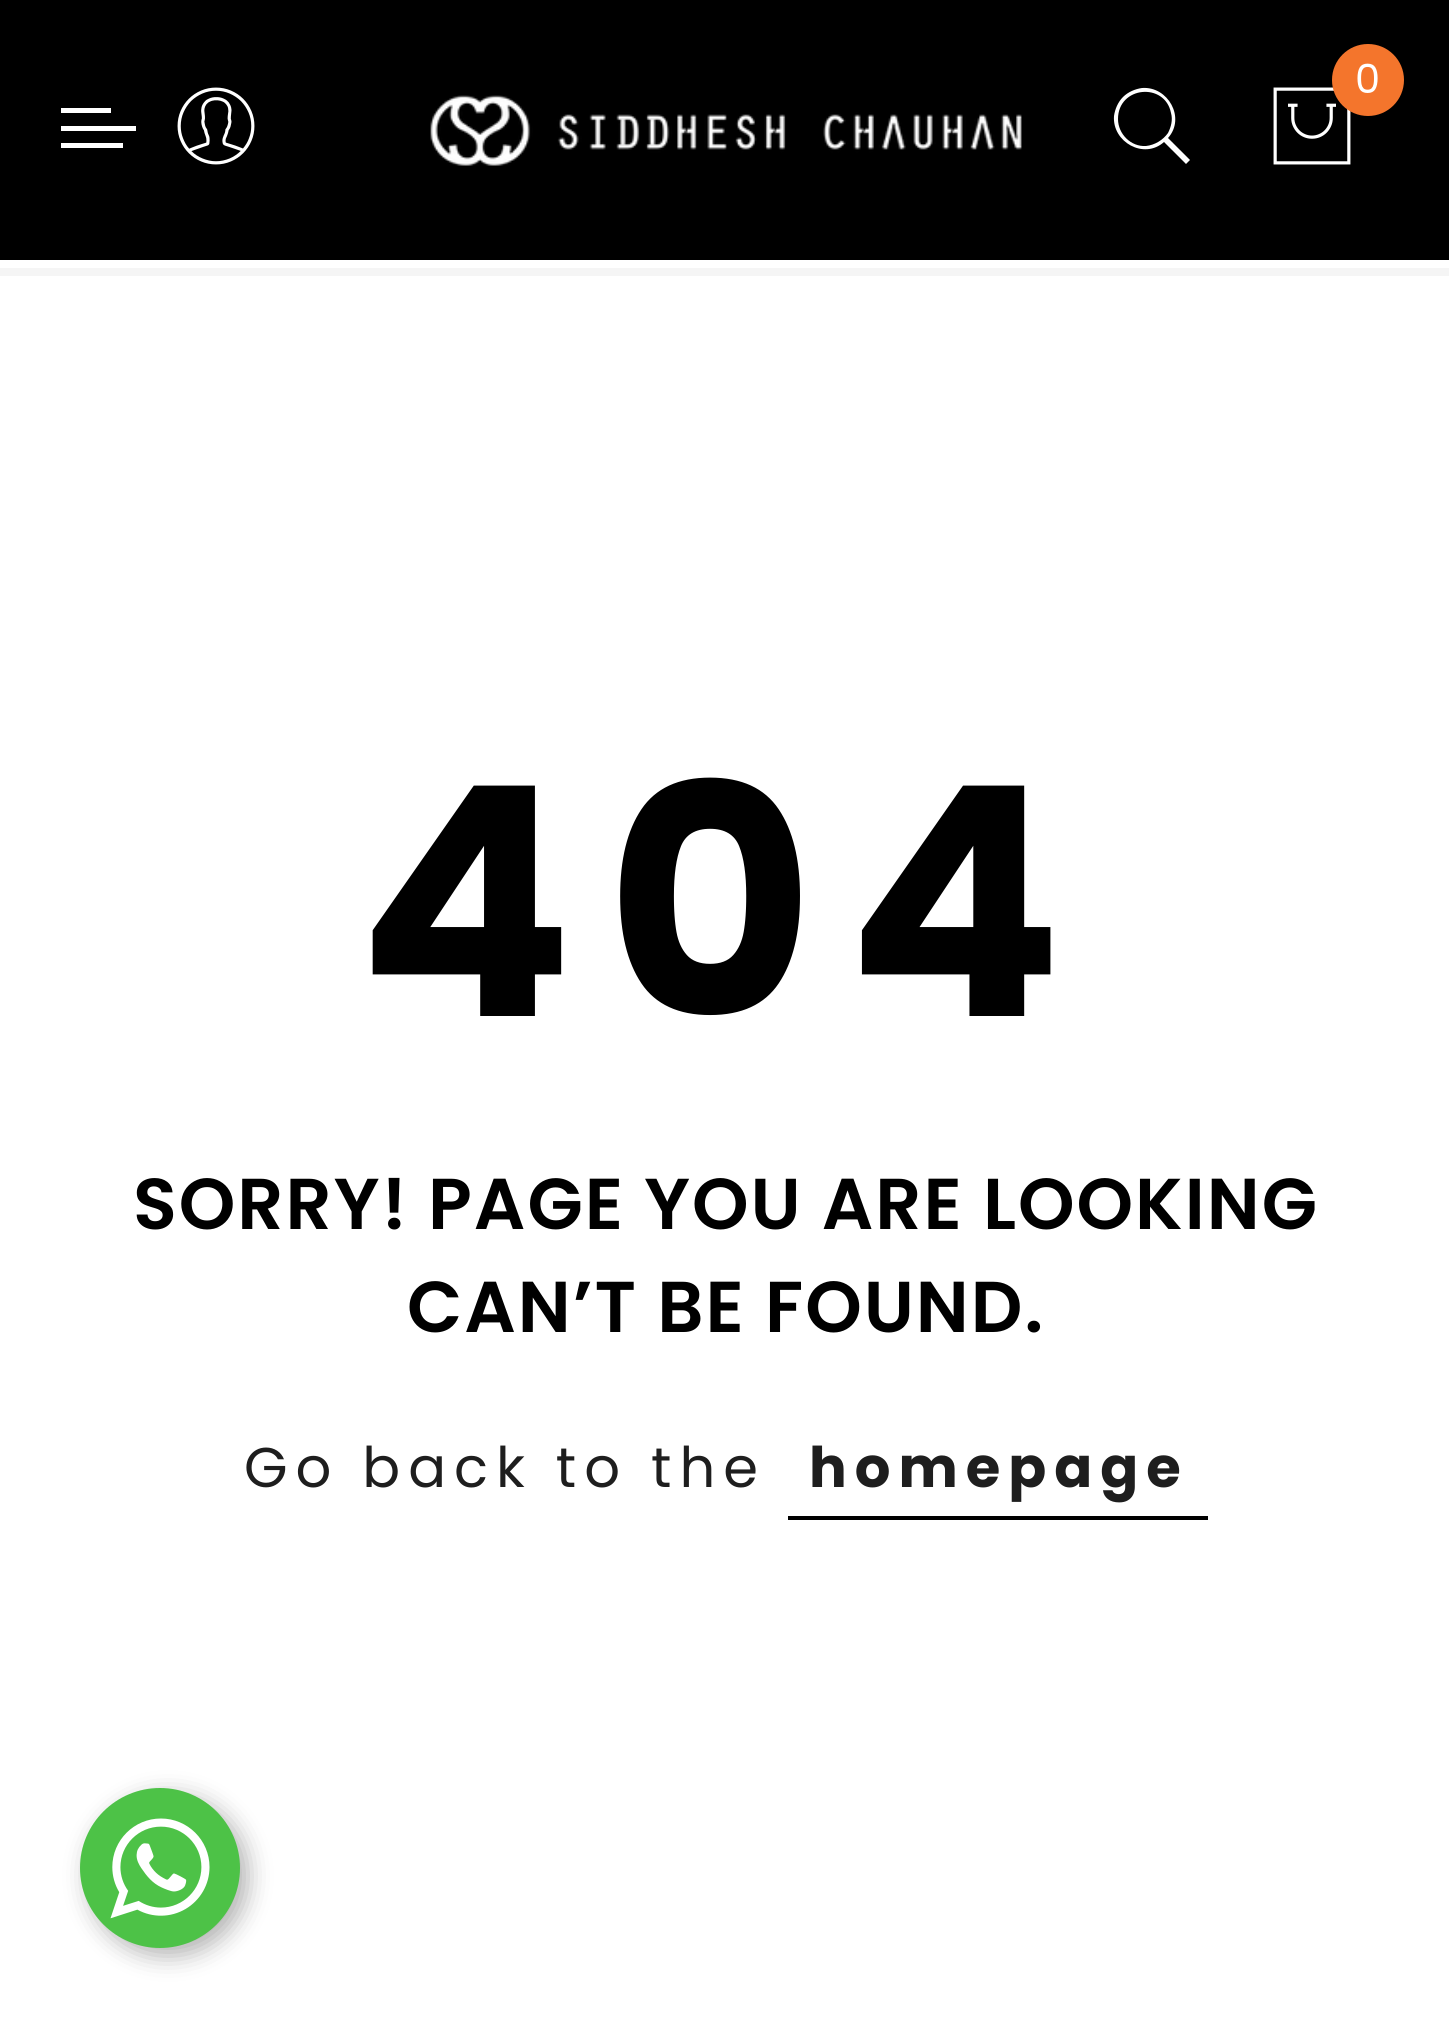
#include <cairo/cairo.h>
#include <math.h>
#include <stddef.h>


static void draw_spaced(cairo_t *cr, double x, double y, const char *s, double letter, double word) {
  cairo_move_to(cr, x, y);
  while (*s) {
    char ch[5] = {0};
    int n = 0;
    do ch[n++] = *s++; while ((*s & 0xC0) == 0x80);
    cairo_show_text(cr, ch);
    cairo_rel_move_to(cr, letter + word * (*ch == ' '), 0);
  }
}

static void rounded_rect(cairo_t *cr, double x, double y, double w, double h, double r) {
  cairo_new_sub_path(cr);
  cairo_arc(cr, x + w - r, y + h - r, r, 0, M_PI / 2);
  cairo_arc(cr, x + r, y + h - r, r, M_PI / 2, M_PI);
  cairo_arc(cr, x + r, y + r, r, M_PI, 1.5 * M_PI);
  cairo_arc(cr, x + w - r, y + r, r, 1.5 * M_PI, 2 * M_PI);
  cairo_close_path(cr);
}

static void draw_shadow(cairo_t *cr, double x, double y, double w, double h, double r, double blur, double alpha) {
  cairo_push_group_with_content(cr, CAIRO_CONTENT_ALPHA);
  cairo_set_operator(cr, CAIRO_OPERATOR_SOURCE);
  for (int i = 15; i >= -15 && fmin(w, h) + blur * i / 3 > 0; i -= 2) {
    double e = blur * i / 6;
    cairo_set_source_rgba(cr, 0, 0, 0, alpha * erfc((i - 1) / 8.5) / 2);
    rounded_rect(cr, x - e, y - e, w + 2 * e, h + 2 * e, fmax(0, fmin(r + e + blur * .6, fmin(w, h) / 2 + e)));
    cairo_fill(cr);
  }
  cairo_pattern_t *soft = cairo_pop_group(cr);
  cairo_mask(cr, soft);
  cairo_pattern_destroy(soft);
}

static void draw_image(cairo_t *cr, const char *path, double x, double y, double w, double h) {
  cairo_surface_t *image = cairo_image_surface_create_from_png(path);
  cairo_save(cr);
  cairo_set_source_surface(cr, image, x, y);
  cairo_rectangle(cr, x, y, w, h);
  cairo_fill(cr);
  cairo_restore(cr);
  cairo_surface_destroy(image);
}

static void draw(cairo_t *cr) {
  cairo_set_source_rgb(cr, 1, 1, 1);
  cairo_paint(cr);
  cairo_set_source_rgb(cr, 245 / 255.0, 245 / 255.0, 245 / 255.0);
  cairo_rectangle(cr, 0, 268, 1449, 8);
  cairo_fill(cr);
  cairo_set_source_rgb(cr, 0, 0, 0);
  cairo_rectangle(cr, 0, 0, 1449, 260);
  cairo_fill(cr);
  draw_image(cr, "images/1.png", 1273, 87, 78, 78);
  cairo_set_source_rgb(cr, 244 / 255.0, 117 / 255.0, 44 / 255.0);
  cairo_arc(cr, 1368, 80, 36, 0, 2 * M_PI);
  cairo_fill(cr);
  cairo_set_source_rgb(cr, 1, 1, 1);
  cairo_new_path(cr);
  cairo_move_to(cr, 1190, 160);
  cairo_line_to(cr, 1168, 138);
  cairo_curve_to(cr, 1186, 118, 1168, 86, 1142, 88);
  cairo_curve_to(cr, 1135, 89, 1128, 92, 1123, 97);
  cairo_curve_to(cr, 1118, 102, 1115, 109, 1114, 116);
  cairo_curve_to(cr, 1112, 142, 1144, 160, 1164, 142);
  cairo_line_to(cr, 1186, 164);
  cairo_close_path(cr);
  cairo_move_to(cr, 1118, 119);
  cairo_curve_to(cr, 1118, 86, 1165, 82, 1171, 113);
  cairo_curve_to(cr, 1173, 120, 1171, 127, 1168, 133);
  cairo_curve_to(cr, 1163, 140, 1155, 145, 1146, 146);
  cairo_curve_to(cr, 1131, 147, 1118, 134, 1118, 119);
  cairo_close_path(cr);
  cairo_fill(cr);
  cairo_rectangle(cr, 61, 108, 50, 5);
  cairo_fill(cr);
  cairo_rectangle(cr, 61, 126, 75, 5);
  cairo_fill(cr);
  cairo_rectangle(cr, 61, 143, 62, 5);
  cairo_fill(cr);
  draw_image(cr, "images/2.png", 177, 87, 78, 78);
  draw_image(cr, "images/3.png", 430, 95, 592, 71);
  cairo_set_source_rgb(cr, 0, 0, 0);
  cairo_rectangle(cr, 788, 1516, 420, 4);
  cairo_fill(cr);
  cairo_set_source_rgb(cr, 0, 0, 0);
  draw_shadow(cr, 88, 1796, 160, 160, 80, 12, 0.3);
  cairo_set_source_rgb(cr, 77 / 255.0, 194 / 255.0, 71 / 255.0);
  cairo_arc(cr, 160, 1868, 80, 0, 2 * M_PI);
  cairo_fill(cr);
  draw_image(cr, "images/4.png", 110, 1818, 100, 101);
  cairo_select_font_face(cr, "Poppins", CAIRO_FONT_SLANT_NORMAL, CAIRO_FONT_WEIGHT_NORMAL);
  cairo_set_font_size(cr, 40);
  cairo_set_source_rgb(cr, 1, 1, 1);
  cairo_move_to(cr, 1355, 93);
  cairo_show_text(cr, "0");
  cairo_select_font_face(cr, "Poppins", CAIRO_FONT_SLANT_NORMAL, CAIRO_FONT_WEIGHT_BOLD);
  cairo_set_font_size(cr, 320);
  cairo_set_source_rgb(cr, 0, 0, 0);
  draw_spaced(cr, 357, 1016, "404", 32, 0);
  cairo_select_font_face(cr, "Poppins SemiBold", CAIRO_FONT_SLANT_NORMAL, CAIRO_FONT_WEIGHT_NORMAL);
  cairo_set_font_size(cr, 72);
  draw_spaced(cr, 133, 1229, "SORRY! PAGE YOU ARE LOOKING", 2, 0);
  draw_spaced(cr, 407, 1332, "CAN’T BE FOUND.", 2, 0);
  cairo_select_font_face(cr, "Poppins", CAIRO_FONT_SLANT_NORMAL, CAIRO_FONT_WEIGHT_NORMAL);
  cairo_set_font_size(cr, 56);
  cairo_set_source_rgb(cr, 30 / 255.0, 30 / 255.0, 30 / 255.0);
  draw_spaced(cr, 244, 1487, "Go back to the", 8, 0);
  cairo_select_font_face(cr, "Poppins", CAIRO_FONT_SLANT_NORMAL, CAIRO_FONT_WEIGHT_BOLD);
  draw_spaced(cr, 809, 1487, "homepage", 8, 0);
}

int main(void) {
  cairo_surface_t *surface = cairo_image_surface_create(CAIRO_FORMAT_RGB24, 1449, 2025);
  cairo_t *cr = cairo_create(surface);
  cairo_font_options_t *options = cairo_font_options_create();
  cairo_font_options_set_hint_metrics(options, CAIRO_HINT_METRICS_OFF);
  cairo_font_options_set_hint_style(options, CAIRO_HINT_STYLE_NONE);
  cairo_set_font_options(cr, options);
  cairo_set_miter_limit(cr, 4);
  draw(cr);
  cairo_surface_write_to_png(surface, "out.png");
  cairo_font_options_destroy(options);
  cairo_destroy(cr);
  cairo_surface_destroy(surface);
  return 0;
}
